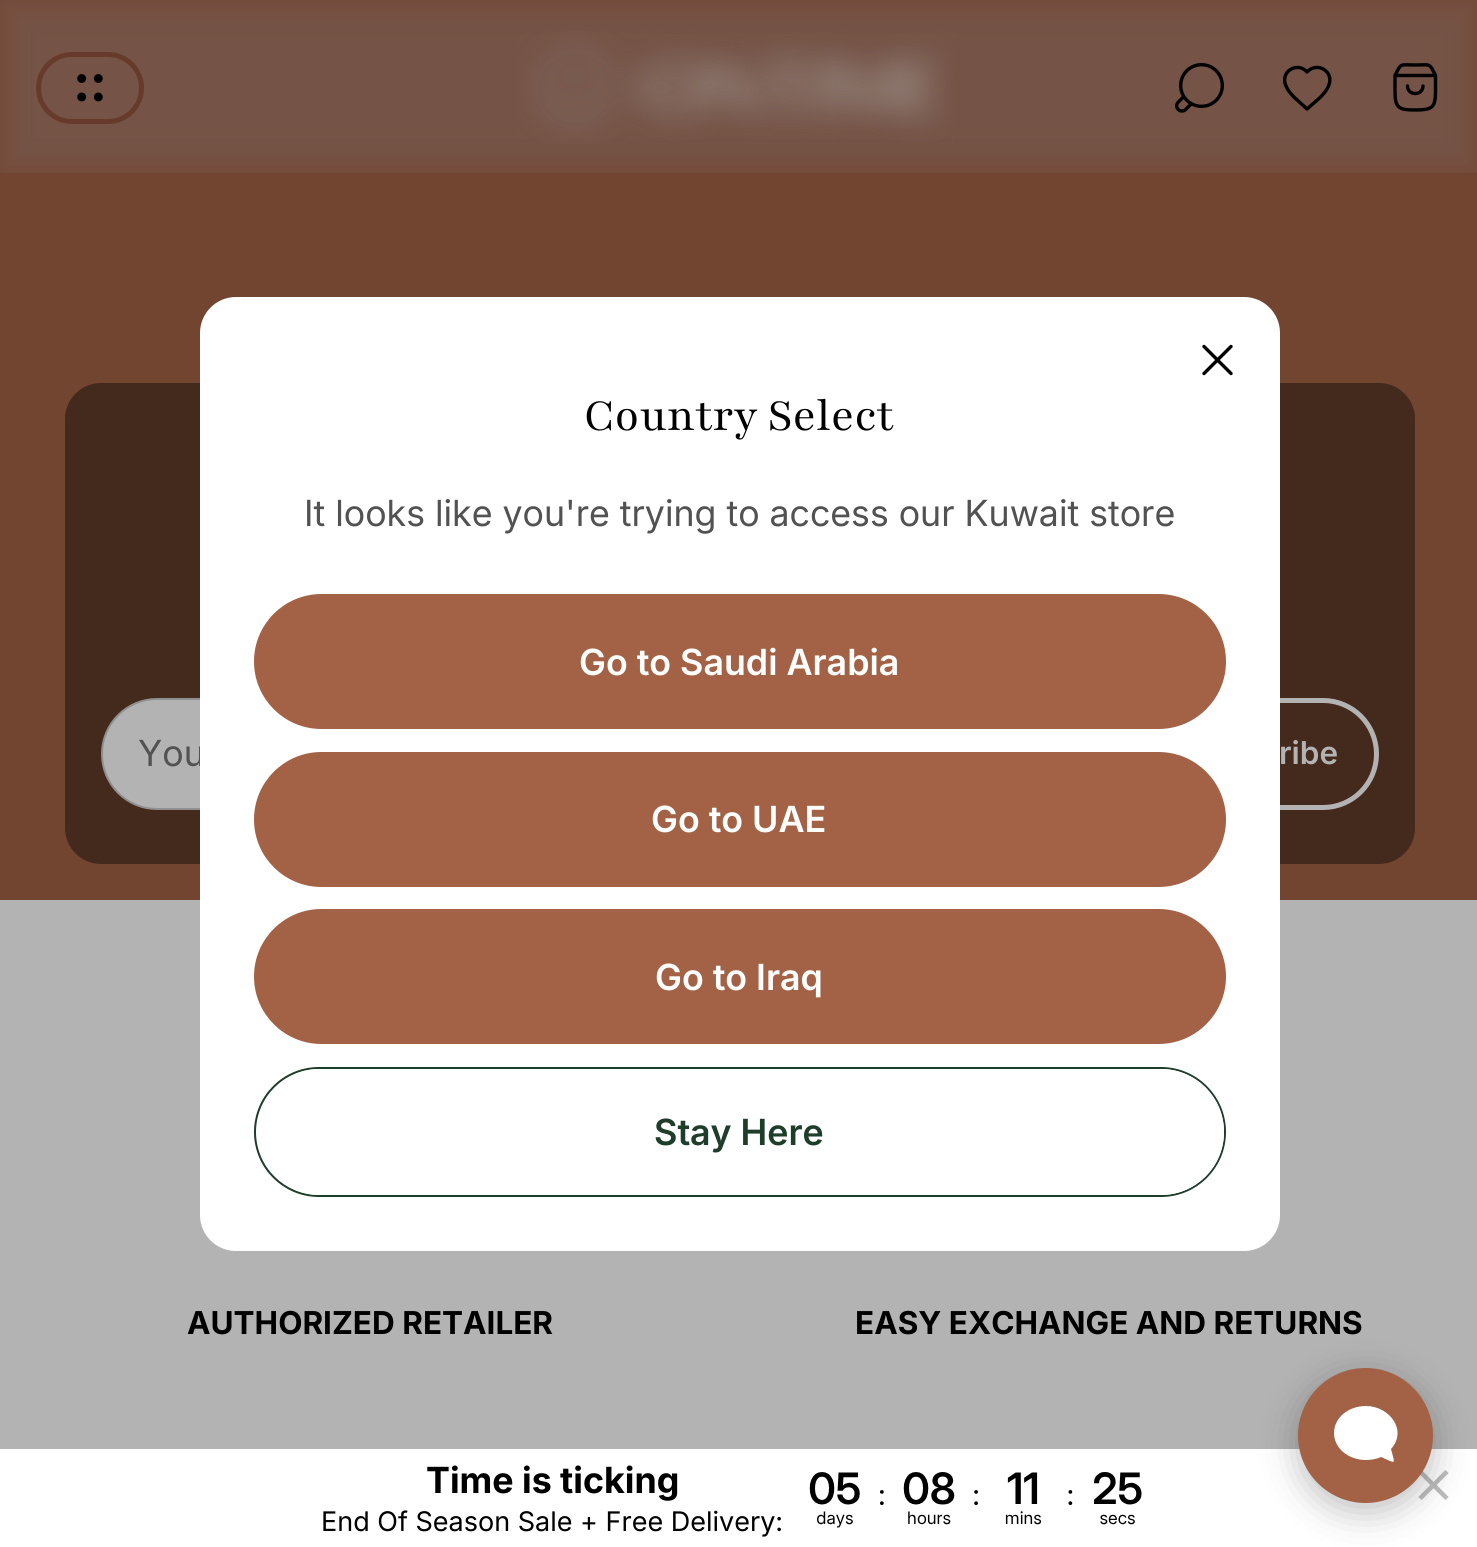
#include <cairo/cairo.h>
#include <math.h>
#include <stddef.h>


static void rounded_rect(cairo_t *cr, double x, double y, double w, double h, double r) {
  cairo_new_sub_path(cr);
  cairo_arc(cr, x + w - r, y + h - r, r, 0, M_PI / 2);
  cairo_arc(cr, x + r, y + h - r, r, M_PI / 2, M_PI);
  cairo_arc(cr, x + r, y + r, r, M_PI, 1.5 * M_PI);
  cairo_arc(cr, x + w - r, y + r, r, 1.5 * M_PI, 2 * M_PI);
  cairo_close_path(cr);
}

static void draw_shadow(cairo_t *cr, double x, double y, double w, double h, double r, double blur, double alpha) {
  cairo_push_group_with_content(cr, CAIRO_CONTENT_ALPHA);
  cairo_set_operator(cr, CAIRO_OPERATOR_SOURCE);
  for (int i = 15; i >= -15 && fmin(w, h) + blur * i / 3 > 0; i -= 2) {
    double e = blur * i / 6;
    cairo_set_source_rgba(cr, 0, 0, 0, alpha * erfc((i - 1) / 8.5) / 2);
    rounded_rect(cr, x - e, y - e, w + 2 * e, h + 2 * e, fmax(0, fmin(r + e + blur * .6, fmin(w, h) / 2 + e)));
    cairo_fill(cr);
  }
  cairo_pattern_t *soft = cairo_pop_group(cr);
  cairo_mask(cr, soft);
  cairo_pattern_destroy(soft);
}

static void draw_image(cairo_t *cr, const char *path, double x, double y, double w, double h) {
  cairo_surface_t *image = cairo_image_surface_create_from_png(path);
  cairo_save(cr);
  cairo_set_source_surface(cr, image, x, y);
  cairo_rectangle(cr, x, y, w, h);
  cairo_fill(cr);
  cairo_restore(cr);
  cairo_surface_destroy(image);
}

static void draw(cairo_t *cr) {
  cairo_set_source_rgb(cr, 179 / 255.0, 179 / 255.0, 179 / 255.0);
  cairo_paint(cr);
  cairo_set_source_rgb(cr, 114 / 255.0, 69 / 255.0, 49 / 255.0);
  cairo_rectangle(cr, 0, 0, 1477, 900);
  cairo_fill(cr);
  cairo_save(cr);
  cairo_rectangle(cr, 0, 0, 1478, 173);
  cairo_clip(cr);
  cairo_set_source_rgb(cr, 117 / 255.0, 83 / 255.0, 70 / 255.0);
  draw_shadow(cr, 0, 0, 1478, 173, 0, 16, 1);
  cairo_restore(cr);
  rounded_rect(cr, 38.5, 54.5, 103, 67, 33.5);
  cairo_set_source_rgb(cr, 102 / 255.0, 59 / 255.0, 43 / 255.0);
  cairo_set_line_width(cr, 5);
  cairo_stroke(cr);
  draw_image(cr, "images/1.png", 77, 74, 26, 28);
  draw_image(cr, "images/2.png", 518, 31, 436, 113);
  draw_image(cr, "images/3.png", 1175, 63, 49, 50);
  cairo_new_path(cr);
  cairo_move_to(cr, 1307, 109);
  cairo_curve_to(cr, 1300, 102, 1290, 95.5, 1286, 86);
  cairo_curve_to(cr, 1279.5, 71.5, 1297.5, 61, 1307, 72);
  cairo_curve_to(cr, 1317, 61, 1335, 71.5, 1328.5, 86);
  cairo_curve_to(cr, 1324.5, 95.5, 1314.5, 102, 1307, 109);
  cairo_close_path(cr);
  cairo_set_source_rgb(cr, 0, 0, 0);
  cairo_set_line_width(cr, 3.4);
  cairo_set_line_cap(cr, CAIRO_LINE_CAP_ROUND);
  cairo_set_line_join(cr, CAIRO_LINE_JOIN_ROUND);
  cairo_stroke(cr);
  cairo_new_path(cr);
  cairo_move_to(cr, 1423, 86);
  cairo_curve_to(cr, 1423, 96, 1407.5, 96, 1407.5, 86);
  cairo_move_to(cr, 1395, 75.5);
  cairo_line_to(cr, 1435.5, 75.5);
  cairo_move_to(cr, 1395, 75.5);
  cairo_line_to(cr, 1395, 91);
  cairo_curve_to(cr, 1395, 107.5, 1398, 110, 1415, 110);
  cairo_curve_to(cr, 1432.5, 110, 1435.5, 107.5, 1435.5, 91);
  cairo_line_to(cr, 1435.5, 75.5);
  cairo_move_to(cr, 1395, 75.5);
  cairo_curve_to(cr, 1401.5, 62.5, 1399.5, 65, 1415, 65);
  cairo_curve_to(cr, 1431, 65, 1429, 62.5, 1435.5, 75.5);
  cairo_stroke(cr);
  cairo_set_source_rgb(cr, 68 / 255.0, 41 / 255.0, 29 / 255.0);
  rounded_rect(cr, 65, 383, 1350, 481, 36);
  cairo_fill(cr);
  cairo_set_source_rgb(cr, 179 / 255.0, 179 / 255.0, 179 / 255.0);
  rounded_rect(cr, 102, 699, 1022, 110, 55);
  cairo_fill_preserve(cr);
  cairo_set_source_rgb(cr, 144 / 255.0, 144 / 255.0, 144 / 255.0);
  cairo_set_line_width(cr, 2);
  cairo_set_line_cap(cr, CAIRO_LINE_CAP_BUTT);
  cairo_set_line_join(cr, CAIRO_LINE_JOIN_MITER);
  cairo_stroke(cr);
  rounded_rect(cr, 1145.5, 700.5, 231, 107, 53.5);
  cairo_set_source_rgb(cr, 179 / 255.0, 179 / 255.0, 179 / 255.0);
  cairo_set_line_width(cr, 5);
  cairo_stroke(cr);
  cairo_set_source_rgb(cr, 1, 1, 1);
  cairo_rectangle(cr, 0, 1449, 1477, 98);
  cairo_fill(cr);
  draw_image(cr, "images/4.png", 809, 1472, 333, 56);
  cairo_new_path(cr);
  cairo_move_to(cr, 1447, 1471.5);
  cairo_line_to(cr, 1420, 1498.5);
  cairo_move_to(cr, 1447, 1498.5);
  cairo_line_to(cr, 1420, 1471.5);
  cairo_set_source_rgb(cr, 189 / 255.0, 189 / 255.0, 189 / 255.0);
  cairo_set_line_width(cr, 4.5);
  cairo_stroke(cr);
  cairo_set_source_rgb(cr, 0, 0, 0);
  draw_shadow(cr, 1298, 1377, 135, 135, 67.5, 18, 0.25);
  cairo_set_source_rgb(cr, 163 / 255.0, 98 / 255.0, 70 / 255.0);
  cairo_arc(cr, 1365.5, 1435.5, 67.5, 0, 2 * M_PI);
  cairo_fill(cr);
  cairo_set_source_rgb(cr, 1, 1, 1);
  cairo_new_path(cr);
  cairo_move_to(cr, 1366, 1406);
  cairo_curve_to(cr, 1389, 1406, 1408, 1430, 1391, 1449);
  cairo_curve_to(cr, 1395, 1465, 1397, 1464, 1381, 1457);
  cairo_curve_to(cr, 1377, 1459, 1371, 1460, 1366, 1460);
  cairo_curve_to(cr, 1348, 1460, 1334, 1448, 1334, 1433);
  cairo_curve_to(cr, 1334, 1418, 1348, 1406, 1366, 1406);
  cairo_close_path(cr);
  cairo_fill(cr);
  cairo_select_font_face(cr, "Inter", CAIRO_FONT_SLANT_NORMAL, CAIRO_FONT_WEIGHT_NORMAL);
  cairo_set_font_size(cr, 36);
  cairo_set_source_rgb(cr, 82 / 255.0, 82 / 255.0, 82 / 255.0);
  cairo_move_to(cr, 138, 766);
  cairo_show_text(cr, "You");
  cairo_set_source_rgb(cr, 1, 1, 1);
  rounded_rect(cr, 200, 297, 1080, 954, 36);
  cairo_fill(cr);
  rounded_rect(cr, 255, 1068, 970, 128, 64);
  cairo_set_source_rgb(cr, 31 / 255.0, 61 / 255.0, 43 / 255.0);
  cairo_set_line_width(cr, 2);
  cairo_stroke(cr);
  cairo_set_source_rgb(cr, 1, 1, 1);
  rounded_rect(cr, 257, 1069, 967, 126, 63);
  cairo_fill(cr);
  cairo_select_font_face(cr, "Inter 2 SemiBold", CAIRO_FONT_SLANT_NORMAL, CAIRO_FONT_WEIGHT_NORMAL);
  cairo_set_source_rgb(cr, 31 / 255.0, 61 / 255.0, 43 / 255.0);
  cairo_move_to(cr, 654, 1145);
  cairo_show_text(cr, "Stay Here");
  cairo_set_source_rgb(cr, 163 / 255.0, 98 / 255.0, 70 / 255.0);
  rounded_rect(cr, 256.5, 911.5, 967, 130, 65);
  cairo_fill_preserve(cr);
  cairo_set_line_width(cr, 5);
  cairo_stroke(cr);
  cairo_set_source_rgb(cr, 1, 1, 1);
  cairo_move_to(cr, 655, 990);
  cairo_show_text(cr, "Go to Iraq");
  cairo_set_source_rgb(cr, 163 / 255.0, 98 / 255.0, 70 / 255.0);
  rounded_rect(cr, 256.5, 754.5, 967, 130, 65);
  cairo_fill_preserve(cr);
  cairo_stroke(cr);
  cairo_set_source_rgb(cr, 1, 1, 1);
  cairo_move_to(cr, 651, 832);
  cairo_show_text(cr, "Go to UAE");
  cairo_set_source_rgb(cr, 163 / 255.0, 98 / 255.0, 70 / 255.0);
  rounded_rect(cr, 256.5, 596.5, 967, 130, 65);
  cairo_fill_preserve(cr);
  cairo_stroke(cr);
  cairo_set_source_rgb(cr, 1, 1, 1);
  cairo_move_to(cr, 579, 675);
  cairo_show_text(cr, "Go to Saudi Arabia");
  cairo_new_path(cr);
  cairo_move_to(cr, 1231, 346.5);
  cairo_line_to(cr, 1204, 373.5);
  cairo_move_to(cr, 1204, 346.5);
  cairo_line_to(cr, 1231, 373.5);
  cairo_set_source_rgb(cr, 0, 0, 0);
  cairo_set_line_width(cr, 3.4);
  cairo_set_line_cap(cr, CAIRO_LINE_CAP_ROUND);
  cairo_set_line_join(cr, CAIRO_LINE_JOIN_ROUND);
  cairo_stroke(cr);
  cairo_select_font_face(cr, "Inter", CAIRO_FONT_SLANT_NORMAL, CAIRO_FONT_WEIGHT_NORMAL);
  cairo_set_source_rgb(cr, 82 / 255.0, 82 / 255.0, 82 / 255.0);
  cairo_move_to(cr, 304, 526);
  cairo_show_text(cr, "It looks like you're trying to access our Kuwait store");
  cairo_select_font_face(cr, "Playfair", CAIRO_FONT_SLANT_NORMAL, CAIRO_FONT_WEIGHT_NORMAL);
  cairo_set_font_size(cr, 49.5);
  cairo_set_source_rgb(cr, 0, 0, 0);
  cairo_move_to(cr, 584, 430);
  cairo_show_text(cr, "Country Select");
  cairo_select_font_face(cr, "Inter SemiBold", CAIRO_FONT_SLANT_NORMAL, CAIRO_FONT_WEIGHT_NORMAL);
  cairo_set_font_size(cr, 31.5);
  cairo_set_source_rgb(cr, 179 / 255.0, 179 / 255.0, 179 / 255.0);
  cairo_move_to(cr, 1279, 764);
  cairo_show_text(cr, "ribe");
  cairo_select_font_face(cr, "Inter", CAIRO_FONT_SLANT_NORMAL, CAIRO_FONT_WEIGHT_BOLD);
  cairo_set_source_rgb(cr, 0, 0, 0);
  cairo_move_to(cr, 187, 1334);
  cairo_show_text(cr, "AUTHORIZED RETAILER");
  cairo_move_to(cr, 855, 1334);
  cairo_show_text(cr, "EASY EXCHANGE AND RETURNS");
  cairo_select_font_face(cr, "Inter 2", CAIRO_FONT_SLANT_NORMAL, CAIRO_FONT_WEIGHT_BOLD);
  cairo_set_font_size(cr, 36);
  cairo_move_to(cr, 426, 1493);
  cairo_show_text(cr, "Time is ticking");
  cairo_select_font_face(cr, "Inter 2", CAIRO_FONT_SLANT_NORMAL, CAIRO_FONT_WEIGHT_NORMAL);
  cairo_set_font_size(cr, 27);
  cairo_move_to(cr, 321, 1531);
  cairo_show_text(cr, "End Of Season Sale + Free Delivery:");
}

int main(void) {
  cairo_surface_t *surface = cairo_image_surface_create(CAIRO_FORMAT_RGB24, 1477, 1547);
  cairo_t *cr = cairo_create(surface);
  cairo_font_options_t *options = cairo_font_options_create();
  cairo_font_options_set_hint_metrics(options, CAIRO_HINT_METRICS_OFF);
  cairo_font_options_set_hint_style(options, CAIRO_HINT_STYLE_NONE);
  cairo_set_font_options(cr, options);
  cairo_set_miter_limit(cr, 4);
  draw(cr);
  cairo_surface_write_to_png(surface, "out.png");
  cairo_font_options_destroy(options);
  cairo_destroy(cr);
  cairo_surface_destroy(surface);
  return 0;
}
